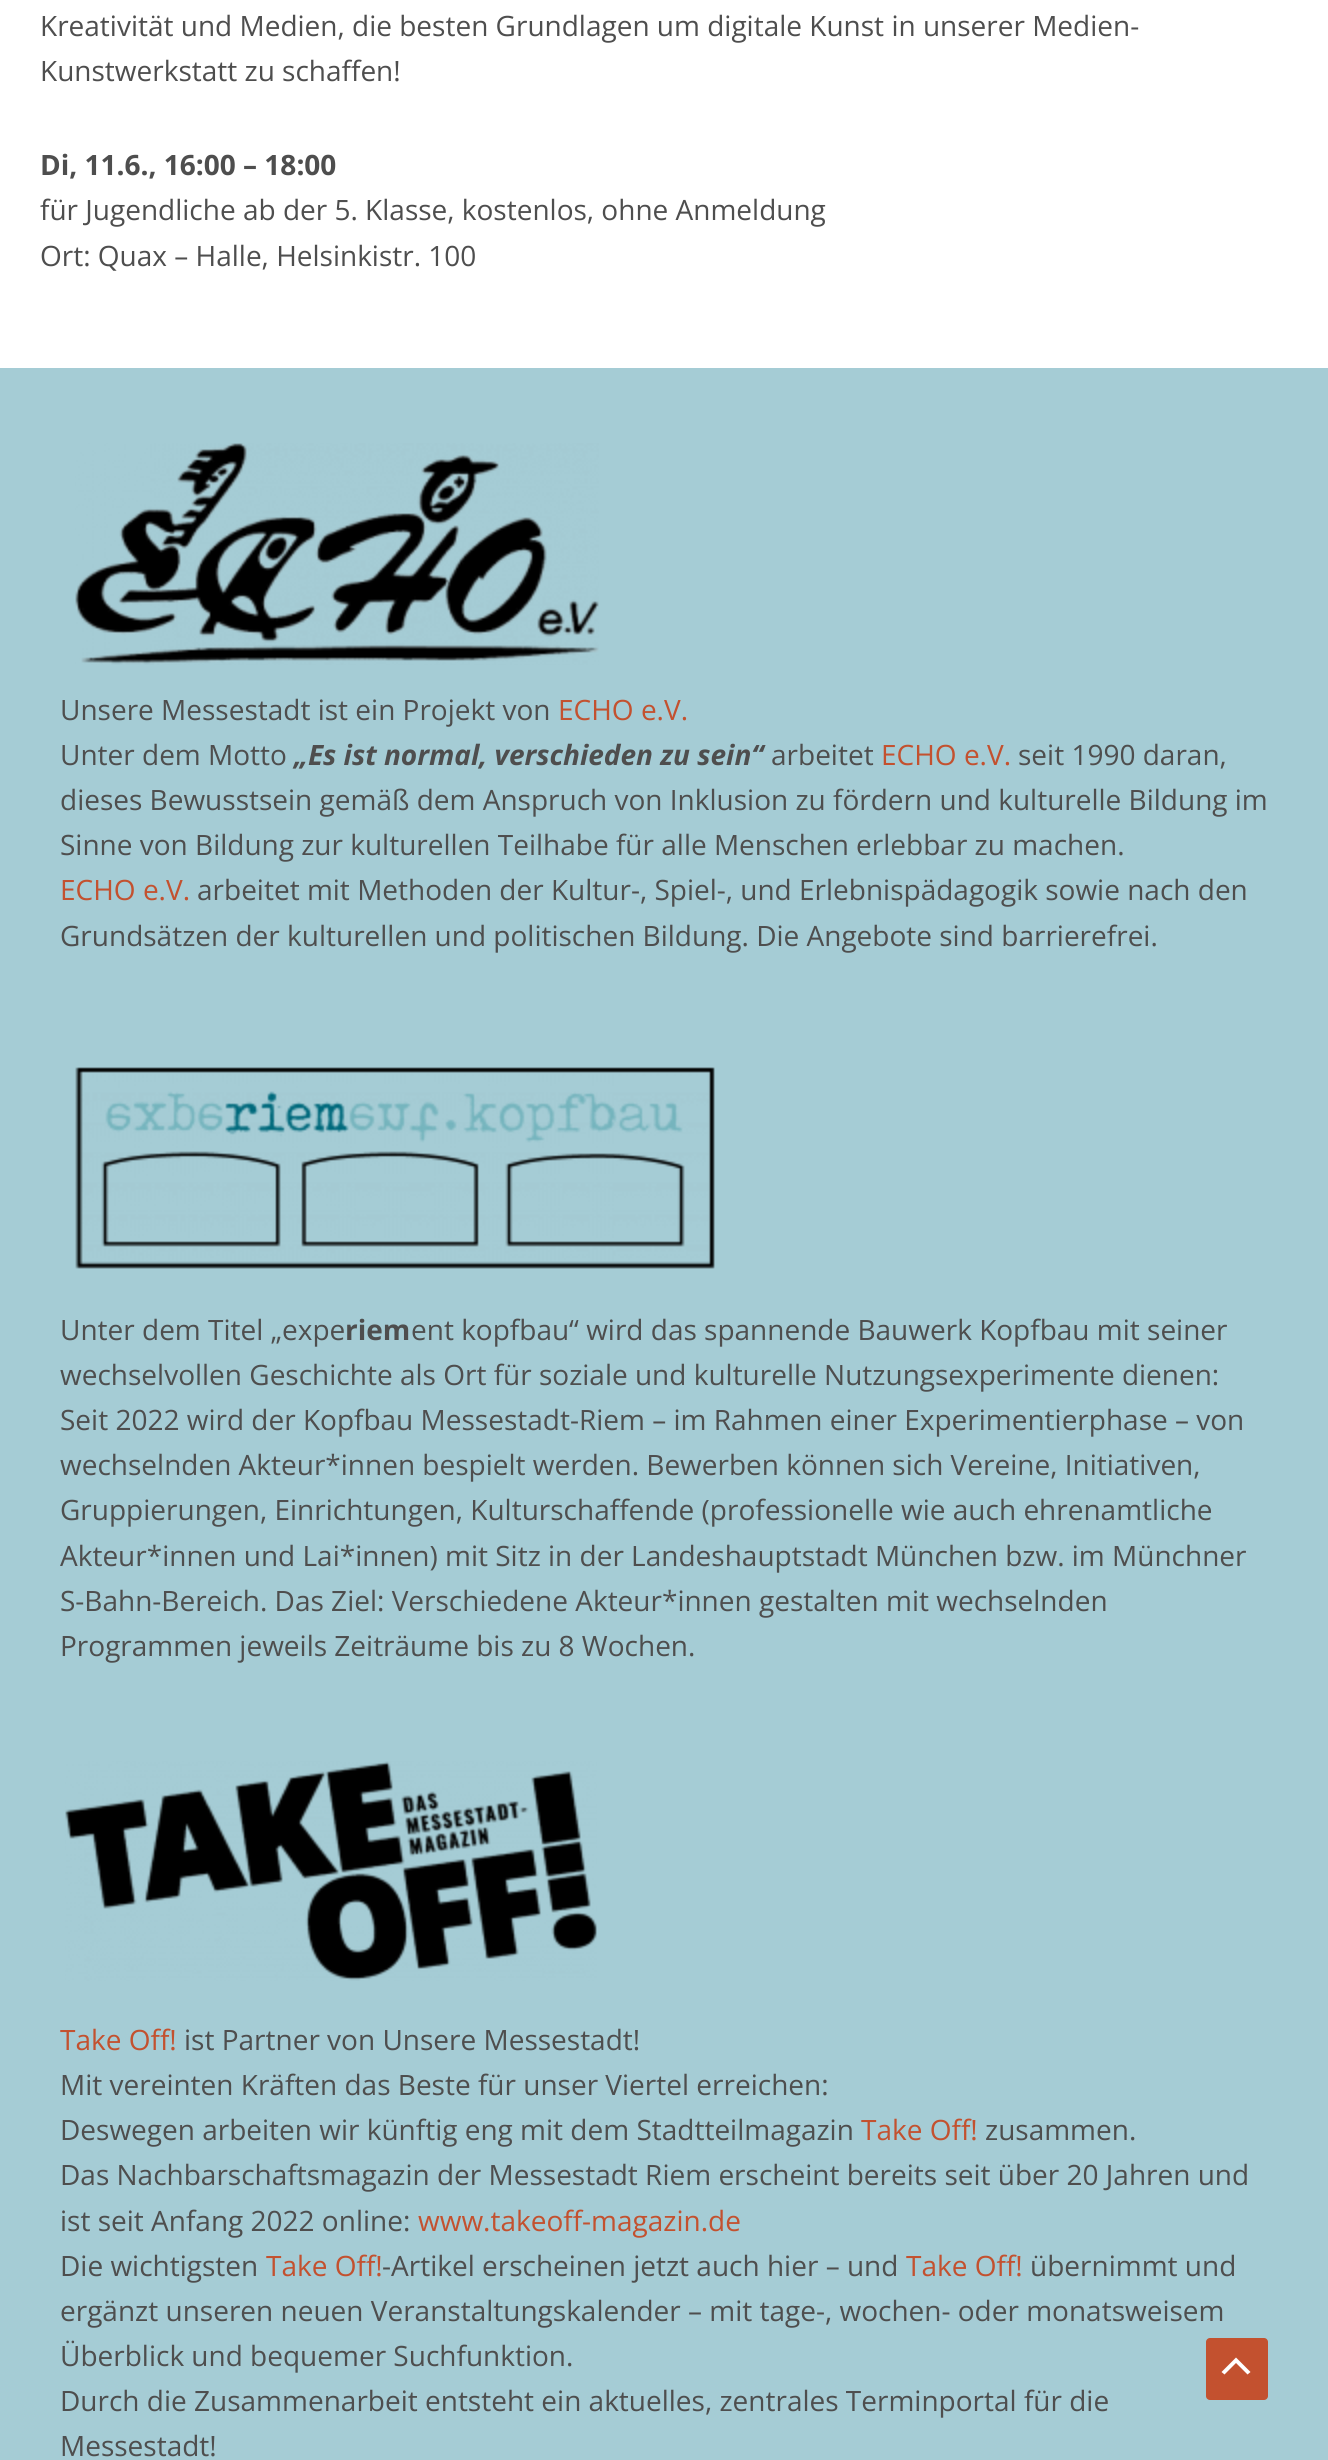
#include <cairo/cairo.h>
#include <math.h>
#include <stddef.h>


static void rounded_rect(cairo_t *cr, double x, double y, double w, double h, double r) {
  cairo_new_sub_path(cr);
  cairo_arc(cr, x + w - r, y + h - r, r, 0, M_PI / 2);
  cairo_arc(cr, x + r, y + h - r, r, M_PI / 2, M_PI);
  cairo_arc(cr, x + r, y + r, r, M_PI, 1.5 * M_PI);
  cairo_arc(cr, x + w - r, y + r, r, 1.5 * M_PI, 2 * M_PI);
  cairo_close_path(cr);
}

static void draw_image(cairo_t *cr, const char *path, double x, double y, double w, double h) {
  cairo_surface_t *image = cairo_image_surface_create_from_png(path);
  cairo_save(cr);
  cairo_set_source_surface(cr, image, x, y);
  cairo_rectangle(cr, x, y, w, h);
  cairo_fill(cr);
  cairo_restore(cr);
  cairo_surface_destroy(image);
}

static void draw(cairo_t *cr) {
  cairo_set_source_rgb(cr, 1, 1, 1);
  cairo_paint(cr);
  cairo_set_source_rgb(cr, 165 / 255.0, 204 / 255.0, 213 / 255.0);
  cairo_rectangle(cr, 0, 368, 1328, 2092);
  cairo_fill(cr);
  draw_image(cr, "images/1.png", 75, 443, 524, 222);
  draw_image(cr, "images/2.png", 75, 1067, 640, 202);
  draw_image(cr, "images/3.png", 65, 1761, 532, 220);
  cairo_set_source_rgb(cr, 195 / 255.0, 81 / 255.0, 47 / 255.0);
  rounded_rect(cr, 1206, 2338, 62, 62, 4);
  cairo_fill(cr);
  cairo_set_source_rgb(cr, 1, 1, 1);
  cairo_new_path(cr);
  cairo_move_to(cr, 1250.5, 2372);
  cairo_line_to(cr, 1236, 2357.5);
  cairo_line_to(cr, 1221.5, 2372);
  cairo_line_to(cr, 1224.5, 2374.5);
  cairo_line_to(cr, 1236, 2363);
  cairo_line_to(cr, 1247.5, 2374.5);
  cairo_close_path(cr);
  cairo_fill(cr);
  cairo_select_font_face(cr, "Open Sans", CAIRO_FONT_SLANT_NORMAL, CAIRO_FONT_WEIGHT_NORMAL);
  cairo_set_font_size(cr, 28);
  cairo_set_source_rgb(cr, 78 / 255.0, 78 / 255.0, 78 / 255.0);
  cairo_move_to(cr, 40, 36);
  cairo_show_text(cr, "Kreativität und Medien, die besten Grundlagen um digitale Kunst in unserer Medien-");
  cairo_move_to(cr, 40, 81);
  cairo_show_text(cr, "Kunstwerkstatt zu schaffen!");
  cairo_select_font_face(cr, "Open Sans", CAIRO_FONT_SLANT_NORMAL, CAIRO_FONT_WEIGHT_BOLD);
  cairo_move_to(cr, 40, 175);
  cairo_show_text(cr, "Di, 11.6., 16:00 – 18:00");
  cairo_select_font_face(cr, "Open Sans", CAIRO_FONT_SLANT_NORMAL, CAIRO_FONT_WEIGHT_NORMAL);
  cairo_move_to(cr, 40, 220);
  cairo_show_text(cr, "für Jugendliche ab der 5. Klasse, kostenlos, ohne Anmeldung");
  cairo_move_to(cr, 40, 266);
  cairo_show_text(cr, "Ort: Quax – Halle, Helsinkistr. 100");
  cairo_move_to(cr, 60, 720);
  cairo_show_text(cr, "Unsere Messestadt ist ein Projekt von");
  cairo_set_source_rgb(cr, 195 / 255.0, 81 / 255.0, 47 / 255.0);
  cairo_move_to(cr, 558, 720);
  cairo_show_text(cr, "ECHO e.V.");
  cairo_set_source_rgb(cr, 78 / 255.0, 78 / 255.0, 78 / 255.0);
  cairo_move_to(cr, 60, 765);
  cairo_show_text(cr, "Unter dem Motto");
  cairo_select_font_face(cr, "Open Sans", CAIRO_FONT_SLANT_ITALIC, CAIRO_FONT_WEIGHT_BOLD);
  cairo_move_to(cr, 294, 765);
  cairo_show_text(cr, "„Es ist normal, verschieden zu sein“");
  cairo_select_font_face(cr, "Open Sans", CAIRO_FONT_SLANT_NORMAL, CAIRO_FONT_WEIGHT_NORMAL);
  cairo_move_to(cr, 771, 765);
  cairo_show_text(cr, "arbeitet");
  cairo_set_source_rgb(cr, 195 / 255.0, 81 / 255.0, 47 / 255.0);
  cairo_move_to(cr, 881, 765);
  cairo_show_text(cr, "ECHO e.V.");
  cairo_set_source_rgb(cr, 78 / 255.0, 78 / 255.0, 78 / 255.0);
  cairo_move_to(cr, 1018, 765);
  cairo_show_text(cr, "seit 1990 daran,");
  cairo_move_to(cr, 60, 810);
  cairo_show_text(cr, "dieses Bewusstsein gemäß dem Anspruch von Inklusion zu fördern und kulturelle Bildung im");
  cairo_move_to(cr, 60, 855);
  cairo_show_text(cr, "Sinne von Bildung zur kulturellen Teilhabe für alle Menschen erlebbar zu machen.");
  cairo_set_source_rgb(cr, 195 / 255.0, 81 / 255.0, 47 / 255.0);
  cairo_move_to(cr, 60, 900);
  cairo_show_text(cr, "ECHO e.V.");
  cairo_set_source_rgb(cr, 78 / 255.0, 78 / 255.0, 78 / 255.0);
  cairo_move_to(cr, 197, 900);
  cairo_show_text(cr, "arbeitet mit Methoden der Kultur-, Spiel-, und Erlebnispädagogik sowie nach den");
  cairo_move_to(cr, 60, 946);
  cairo_show_text(cr, "Grundsätzen der kulturellen und politischen Bildung. Die Angebote sind barrierefrei.");
  cairo_move_to(cr, 60, 1340);
  cairo_show_text(cr, "Unter dem Titel „expe");
  cairo_select_font_face(cr, "Open Sans", CAIRO_FONT_SLANT_NORMAL, CAIRO_FONT_WEIGHT_BOLD);
  cairo_move_to(cr, 345, 1340);
  cairo_show_text(cr, "riem");
  cairo_select_font_face(cr, "Open Sans", CAIRO_FONT_SLANT_NORMAL, CAIRO_FONT_WEIGHT_NORMAL);
  cairo_move_to(cr, 411, 1340);
  cairo_show_text(cr, "ent kopfbau“ wird das spannende Bauwerk Kopfbau mit seiner");
  cairo_move_to(cr, 60, 1385);
  cairo_show_text(cr, "wechselvollen Geschichte als Ort für soziale und kulturelle Nutzungsexperimente dienen:");
  cairo_move_to(cr, 60, 1430);
  cairo_show_text(cr, "Seit 2022 wird der Kopfbau Messestadt-Riem – im Rahmen einer Experimentierphase – von");
  cairo_move_to(cr, 60, 1475);
  cairo_show_text(cr, "wechselnden Akteur*innen bespielt werden. Bewerben können sich Vereine, Initiativen,");
  cairo_move_to(cr, 60, 1520);
  cairo_show_text(cr, "Gruppierungen, Einrichtungen, Kulturschaffende (professionelle wie auch ehrenamtliche");
  cairo_move_to(cr, 60, 1566);
  cairo_show_text(cr, "Akteur*innen und Lai*innen) mit Sitz in der Landeshauptstadt München bzw. im Münchner");
  cairo_move_to(cr, 60, 1611);
  cairo_show_text(cr, "S-Bahn-Bereich. Das Ziel: Verschiedene Akteur*innen gestalten mit wechselnden");
  cairo_move_to(cr, 60, 1656);
  cairo_show_text(cr, "Programmen jeweils Zeiträume bis zu 8 Wochen.");
  cairo_set_source_rgb(cr, 195 / 255.0, 81 / 255.0, 47 / 255.0);
  cairo_move_to(cr, 60, 2050);
  cairo_show_text(cr, "Take Off!");
  cairo_set_source_rgb(cr, 78 / 255.0, 78 / 255.0, 78 / 255.0);
  cairo_move_to(cr, 184, 2050);
  cairo_show_text(cr, "ist Partner von Unsere Messestadt!");
  cairo_move_to(cr, 60, 2095);
  cairo_show_text(cr, "Mit vereinten Kräften das Beste für unser Viertel erreichen:");
  cairo_move_to(cr, 60, 2140);
  cairo_show_text(cr, "Deswegen arbeiten wir künftig eng mit dem Stadtteilmagazin");
  cairo_set_source_rgb(cr, 195 / 255.0, 81 / 255.0, 47 / 255.0);
  cairo_move_to(cr, 861, 2140);
  cairo_show_text(cr, "Take Off!");
  cairo_set_source_rgb(cr, 78 / 255.0, 78 / 255.0, 78 / 255.0);
  cairo_move_to(cr, 985, 2140);
  cairo_show_text(cr, "zusammen.");
  cairo_move_to(cr, 60, 2185);
  cairo_show_text(cr, "Das Nachbarschaftsmagazin der Messestadt Riem erscheint bereits seit über 20 Jahren und");
  cairo_move_to(cr, 60, 2231);
  cairo_show_text(cr, "ist seit Anfang 2022 online:");
  cairo_set_source_rgb(cr, 195 / 255.0, 81 / 255.0, 47 / 255.0);
  cairo_move_to(cr, 418, 2231);
  cairo_show_text(cr, "www.takeoff-magazin.de");
  cairo_set_source_rgb(cr, 78 / 255.0, 78 / 255.0, 78 / 255.0);
  cairo_move_to(cr, 60, 2276);
  cairo_show_text(cr, "Die wichtigsten");
  cairo_set_source_rgb(cr, 195 / 255.0, 81 / 255.0, 47 / 255.0);
  cairo_move_to(cr, 266, 2276);
  cairo_show_text(cr, "Take Off!");
  cairo_set_source_rgb(cr, 78 / 255.0, 78 / 255.0, 78 / 255.0);
  cairo_move_to(cr, 382, 2276);
  cairo_show_text(cr, "-Artikel erscheinen jetzt auch hier – und");
  cairo_set_source_rgb(cr, 195 / 255.0, 81 / 255.0, 47 / 255.0);
  cairo_move_to(cr, 906, 2276);
  cairo_show_text(cr, "Take Off!");
  cairo_set_source_rgb(cr, 78 / 255.0, 78 / 255.0, 78 / 255.0);
  cairo_move_to(cr, 1030, 2276);
  cairo_show_text(cr, "übernimmt und");
  cairo_move_to(cr, 60, 2321);
  cairo_show_text(cr, "ergänzt unseren neuen Veranstaltungskalender – mit tage-, wochen- oder monatsweisem");
  cairo_move_to(cr, 60, 2366);
  cairo_show_text(cr, "Überblick und bequemer Suchfunktion.");
  cairo_move_to(cr, 60, 2411);
  cairo_show_text(cr, "Durch die Zusammenarbeit entsteht ein aktuelles, zentrales Terminportal für die");
  cairo_move_to(cr, 60, 2456);
  cairo_show_text(cr, "Messestadt!");
}

int main(void) {
  cairo_surface_t *surface = cairo_image_surface_create(CAIRO_FORMAT_RGB24, 1328, 2460);
  cairo_t *cr = cairo_create(surface);
  cairo_font_options_t *options = cairo_font_options_create();
  cairo_font_options_set_hint_metrics(options, CAIRO_HINT_METRICS_OFF);
  cairo_font_options_set_hint_style(options, CAIRO_HINT_STYLE_NONE);
  cairo_set_font_options(cr, options);
  cairo_set_miter_limit(cr, 4);
  draw(cr);
  cairo_surface_write_to_png(surface, "out.png");
  cairo_font_options_destroy(options);
  cairo_destroy(cr);
  cairo_surface_destroy(surface);
  return 0;
}
